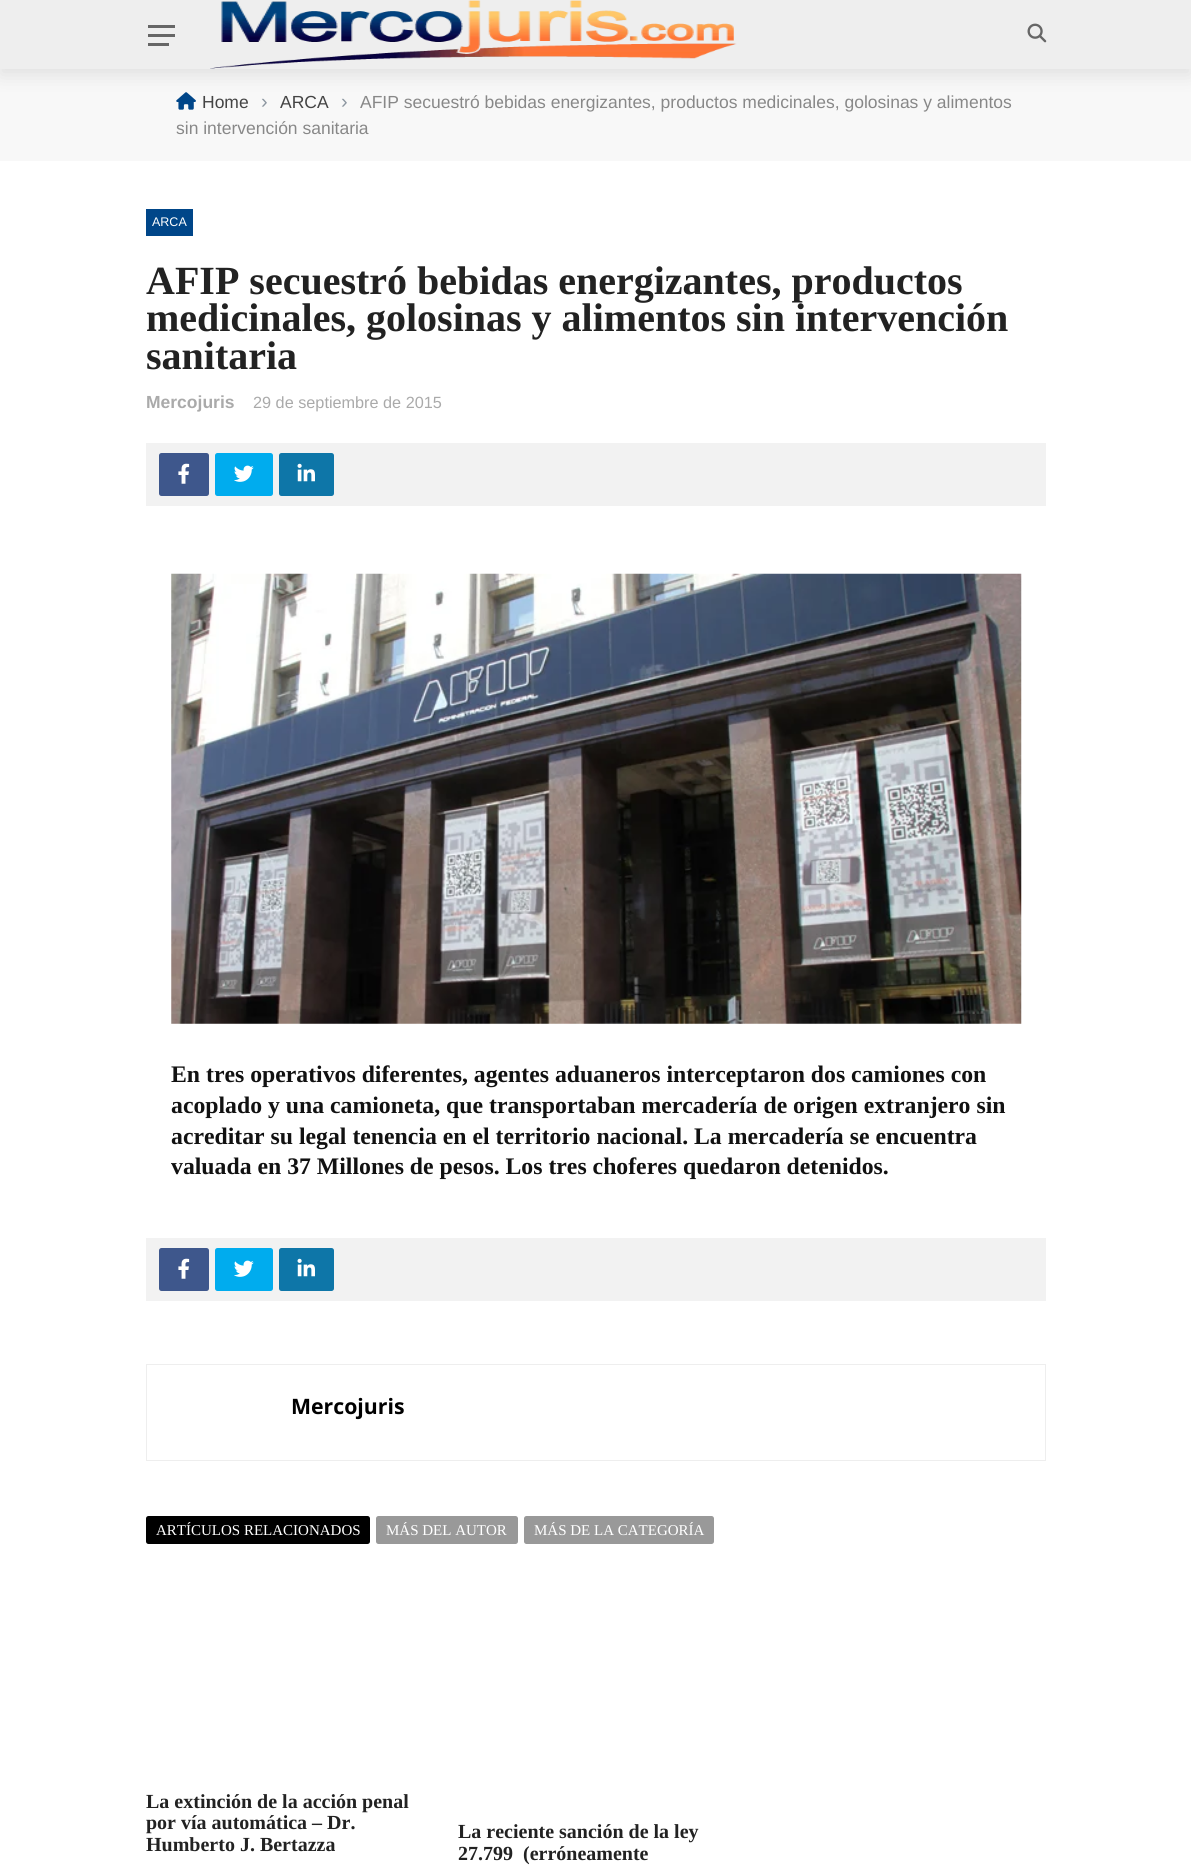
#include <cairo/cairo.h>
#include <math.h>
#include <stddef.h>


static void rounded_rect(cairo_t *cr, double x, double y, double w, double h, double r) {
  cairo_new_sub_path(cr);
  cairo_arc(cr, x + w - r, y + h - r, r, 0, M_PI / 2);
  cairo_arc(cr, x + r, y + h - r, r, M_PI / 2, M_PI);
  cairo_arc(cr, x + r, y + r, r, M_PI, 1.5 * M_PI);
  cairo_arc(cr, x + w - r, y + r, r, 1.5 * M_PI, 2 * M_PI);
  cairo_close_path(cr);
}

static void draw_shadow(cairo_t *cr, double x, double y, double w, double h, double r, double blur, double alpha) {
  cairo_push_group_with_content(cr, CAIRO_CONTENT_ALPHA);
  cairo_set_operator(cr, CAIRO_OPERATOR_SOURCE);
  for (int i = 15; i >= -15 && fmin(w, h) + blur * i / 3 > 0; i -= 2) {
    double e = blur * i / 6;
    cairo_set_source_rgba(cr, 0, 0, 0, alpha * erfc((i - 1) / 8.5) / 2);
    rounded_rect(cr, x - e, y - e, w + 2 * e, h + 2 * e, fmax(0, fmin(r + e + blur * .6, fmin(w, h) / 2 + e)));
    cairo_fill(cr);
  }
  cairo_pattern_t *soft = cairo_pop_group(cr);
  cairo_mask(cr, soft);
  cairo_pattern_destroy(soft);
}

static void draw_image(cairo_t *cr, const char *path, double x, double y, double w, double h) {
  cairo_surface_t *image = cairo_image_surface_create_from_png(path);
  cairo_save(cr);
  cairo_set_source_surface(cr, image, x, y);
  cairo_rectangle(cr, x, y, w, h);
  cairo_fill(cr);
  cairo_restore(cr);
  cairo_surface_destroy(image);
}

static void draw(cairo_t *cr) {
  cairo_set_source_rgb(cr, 1, 1, 1);
  cairo_paint(cr);
  cairo_set_source_rgb(cr, 248 / 255.0, 248 / 255.0, 248 / 255.0);
  cairo_rectangle(cr, 0, 69, 1191, 92);
  cairo_fill(cr);
  draw_image(cr, "images/3.png", 176, 92, 20, 18);
  cairo_set_source_rgb(cr, 0, 0, 0);
  draw_shadow(cr, 0, 6, 1191, 69, 0, 9.5, 0.1);
  cairo_set_source_rgb(cr, 238 / 255.0, 238 / 255.0, 238 / 255.0);
  cairo_rectangle(cr, 0, 0, 1191, 69);
  cairo_fill(cr);
  cairo_set_source_rgb(cr, 102 / 255.0, 102 / 255.0, 102 / 255.0);
  cairo_rectangle(cr, 148, 25, 27, 3);
  cairo_fill(cr);
  cairo_rectangle(cr, 148, 34, 27, 3);
  cairo_fill(cr);
  cairo_rectangle(cr, 148, 43, 21, 3);
  cairo_fill(cr);
  draw_image(cr, "images/1.png", 210, 0, 527, 69);
  draw_image(cr, "images/2.png", 1027, 23, 20, 20);
  cairo_set_source_rgb(cr, 0, 70 / 255.0, 137 / 255.0);
  cairo_rectangle(cr, 146, 209, 47, 27);
  cairo_fill(cr);
  cairo_set_source_rgb(cr, 242 / 255.0, 242 / 255.0, 242 / 255.0);
  cairo_rectangle(cr, 146, 443, 900, 63);
  cairo_fill(cr);
  cairo_set_source_rgb(cr, 62 / 255.0, 87 / 255.0, 140 / 255.0);
  rounded_rect(cr, 159, 453, 50, 43, 2.5);
  cairo_fill(cr);
  draw_image(cr, "images/4.png", 178, 463, 12, 21);
  cairo_set_source_rgb(cr, 0, 172 / 255.0, 238 / 255.0);
  rounded_rect(cr, 215, 453, 58, 43, 2.5);
  cairo_fill(cr);
  draw_image(cr, "images/5.png", 234, 465, 20, 17);
  cairo_set_source_rgb(cr, 14 / 255.0, 118 / 255.0, 168 / 255.0);
  rounded_rect(cr, 279, 453, 55, 43, 2.5);
  cairo_fill(cr);
  draw_image(cr, "images/6.png", 297, 463, 18, 19);
  draw_image(cr, "images/7.png", 171, 573, 851, 451);
  cairo_set_source_rgb(cr, 242 / 255.0, 242 / 255.0, 242 / 255.0);
  cairo_rectangle(cr, 146, 1238, 900, 63);
  cairo_fill(cr);
  cairo_set_source_rgb(cr, 62 / 255.0, 87 / 255.0, 140 / 255.0);
  rounded_rect(cr, 159, 1248, 50, 43, 2.5);
  cairo_fill(cr);
  draw_image(cr, "images/4.png", 178, 1258, 12, 21);
  cairo_set_source_rgb(cr, 0, 172 / 255.0, 238 / 255.0);
  rounded_rect(cr, 215, 1248, 58, 43, 2.5);
  cairo_fill(cr);
  draw_image(cr, "images/5.png", 234, 1260, 20, 17);
  cairo_set_source_rgb(cr, 14 / 255.0, 118 / 255.0, 168 / 255.0);
  rounded_rect(cr, 279, 1248, 55, 43, 2.5);
  cairo_fill(cr);
  draw_image(cr, "images/6.png", 297, 1258, 18, 19);
  cairo_rectangle(cr, 146.5, 1364.5, 899, 96);
  cairo_set_source_rgb(cr, 238 / 255.0, 238 / 255.0, 238 / 255.0);
  cairo_set_line_width(cr, 1);
  cairo_stroke(cr);
  cairo_set_source_rgb(cr, 0, 0, 0);
  rounded_rect(cr, 146, 1516, 224, 28, 2.5);
  cairo_fill(cr);
  cairo_set_source_rgb(cr, 153 / 255.0, 153 / 255.0, 153 / 255.0);
  rounded_rect(cr, 376, 1516, 142, 28, 2.5);
  cairo_fill(cr);
  rounded_rect(cr, 524, 1516, 190, 28, 2.5);
  cairo_fill(cr);
  cairo_select_font_face(cr, "Liberation Sans", CAIRO_FONT_SLANT_NORMAL, CAIRO_FONT_WEIGHT_NORMAL);
  cairo_set_font_size(cr, 17.5);
  cairo_set_source_rgb(cr, 68 / 255.0, 68 / 255.0, 68 / 255.0);
  cairo_move_to(cr, 280, 108);
  cairo_show_text(cr, "ARCA");
  cairo_set_font_size(cr, 20);
  cairo_set_source_rgb(cr, 141 / 255.0, 151 / 255.0, 161 / 255.0);
  cairo_move_to(cr, 341, 108);
  cairo_show_text(cr, "›");
  cairo_set_font_size(cr, 17.5);
  cairo_set_source_rgb(cr, 136 / 255.0, 136 / 255.0, 136 / 255.0);
  cairo_move_to(cr, 360, 108);
  cairo_show_text(cr, "AFIP secuestró bebidas energizantes, productos medicinales, golosinas y alimentos");
  cairo_move_to(cr, 176, 134);
  cairo_show_text(cr, "sin intervención sanitaria");
  cairo_set_source_rgb(cr, 68 / 255.0, 68 / 255.0, 68 / 255.0);
  cairo_move_to(cr, 202, 108);
  cairo_show_text(cr, "Home");
  cairo_set_font_size(cr, 20);
  cairo_set_source_rgb(cr, 141 / 255.0, 151 / 255.0, 161 / 255.0);
  cairo_move_to(cr, 261, 108);
  cairo_show_text(cr, "›");
  cairo_set_font_size(cr, 12.5);
  cairo_set_source_rgb(cr, 1, 1, 1);
  cairo_move_to(cr, 152, 226);
  cairo_show_text(cr, "ARCA");
  cairo_select_font_face(cr, "Liberation Serif", CAIRO_FONT_SLANT_NORMAL, CAIRO_FONT_WEIGHT_BOLD);
  cairo_set_font_size(cr, 40);
  cairo_set_source_rgb(cr, 34 / 255.0, 34 / 255.0, 34 / 255.0);
  cairo_move_to(cr, 146, 294);
  cairo_show_text(cr, "AFIP secuestró bebidas energizantes, productos");
  cairo_move_to(cr, 146, 331);
  cairo_show_text(cr, "medicinales, golosinas y alimentos sin intervención");
  cairo_move_to(cr, 146, 369);
  cairo_show_text(cr, "sanitaria");
  cairo_select_font_face(cr, "Liberation Sans", CAIRO_FONT_SLANT_NORMAL, CAIRO_FONT_WEIGHT_BOLD);
  cairo_set_font_size(cr, 17.5);
  cairo_set_source_rgb(cr, 170 / 255.0, 170 / 255.0, 170 / 255.0);
  cairo_move_to(cr, 146, 408);
  cairo_show_text(cr, "Mercojuris");
  cairo_select_font_face(cr, "Liberation Sans", CAIRO_FONT_SLANT_NORMAL, CAIRO_FONT_WEIGHT_NORMAL);
  cairo_set_font_size(cr, 16.25);
  cairo_move_to(cr, 253, 408);
  cairo_show_text(cr, "29 de septiembre de 2015");
  cairo_select_font_face(cr, "Liberation Serif", CAIRO_FONT_SLANT_NORMAL, CAIRO_FONT_WEIGHT_BOLD);
  cairo_set_font_size(cr, 23.75);
  cairo_set_source_rgb(cr, 17 / 255.0, 17 / 255.0, 17 / 255.0);
  cairo_move_to(cr, 171, 1082);
  cairo_show_text(cr, "En tres operativos diferentes, agentes aduaneros interceptaron dos camiones con");
  cairo_move_to(cr, 171, 1113);
  cairo_show_text(cr, "acoplado y una camioneta, que transportaban mercadería de origen extranjero sin");
  cairo_move_to(cr, 171, 1144);
  cairo_show_text(cr, "acreditar su legal tenencia en el territorio nacional. La mercadería se encuentra");
  cairo_move_to(cr, 171, 1174);
  cairo_show_text(cr, "valuada en 37 Millones de pesos. Los tres choferes quedaron detenidos.");
  cairo_select_font_face(cr, "Open Sans", CAIRO_FONT_SLANT_NORMAL, CAIRO_FONT_WEIGHT_BOLD);
  cairo_set_font_size(cr, 21.25);
  cairo_set_source_rgb(cr, 0, 0, 0);
  cairo_move_to(cr, 291, 1414);
  cairo_show_text(cr, "Mercojuris");
  cairo_select_font_face(cr, "Liberation Serif", CAIRO_FONT_SLANT_NORMAL, CAIRO_FONT_WEIGHT_NORMAL);
  cairo_set_font_size(cr, 15);
  cairo_set_source_rgb(cr, 1, 1, 1);
  cairo_move_to(cr, 156, 1535);
  cairo_show_text(cr, "ARTÍCULOS RELACIONADOS");
  cairo_move_to(cr, 386, 1535);
  cairo_show_text(cr, "MÁS DEL AUTOR");
  cairo_move_to(cr, 534, 1535);
  cairo_show_text(cr, "MÁS DE LA CATEGORÍA");
  cairo_select_font_face(cr, "Liberation Serif", CAIRO_FONT_SLANT_NORMAL, CAIRO_FONT_WEIGHT_BOLD);
  cairo_set_font_size(cr, 20);
  cairo_set_source_rgb(cr, 34 / 255.0, 34 / 255.0, 34 / 255.0);
  cairo_move_to(cr, 146, 1808);
  cairo_show_text(cr, "La extinción de la acción penal");
  cairo_move_to(cr, 146, 1829);
  cairo_show_text(cr, "por vía automática – Dr.");
  cairo_move_to(cr, 146, 1851);
  cairo_show_text(cr, "Humberto J. Bertazza");
  cairo_move_to(cr, 458, 1838);
  cairo_show_text(cr, "La reciente sanción de la ley");
  cairo_move_to(cr, 458, 1860);
  cairo_show_text(cr, "27.799  (erróneamente");
}

int main(void) {
  cairo_surface_t *surface = cairo_image_surface_create(CAIRO_FORMAT_RGB24, 1191, 1874);
  cairo_t *cr = cairo_create(surface);
  cairo_font_options_t *options = cairo_font_options_create();
  cairo_font_options_set_hint_metrics(options, CAIRO_HINT_METRICS_OFF);
  cairo_font_options_set_hint_style(options, CAIRO_HINT_STYLE_NONE);
  cairo_set_font_options(cr, options);
  cairo_set_miter_limit(cr, 4);
  draw(cr);
  cairo_surface_write_to_png(surface, "out.png");
  cairo_font_options_destroy(options);
  cairo_destroy(cr);
  cairo_surface_destroy(surface);
  return 0;
}
